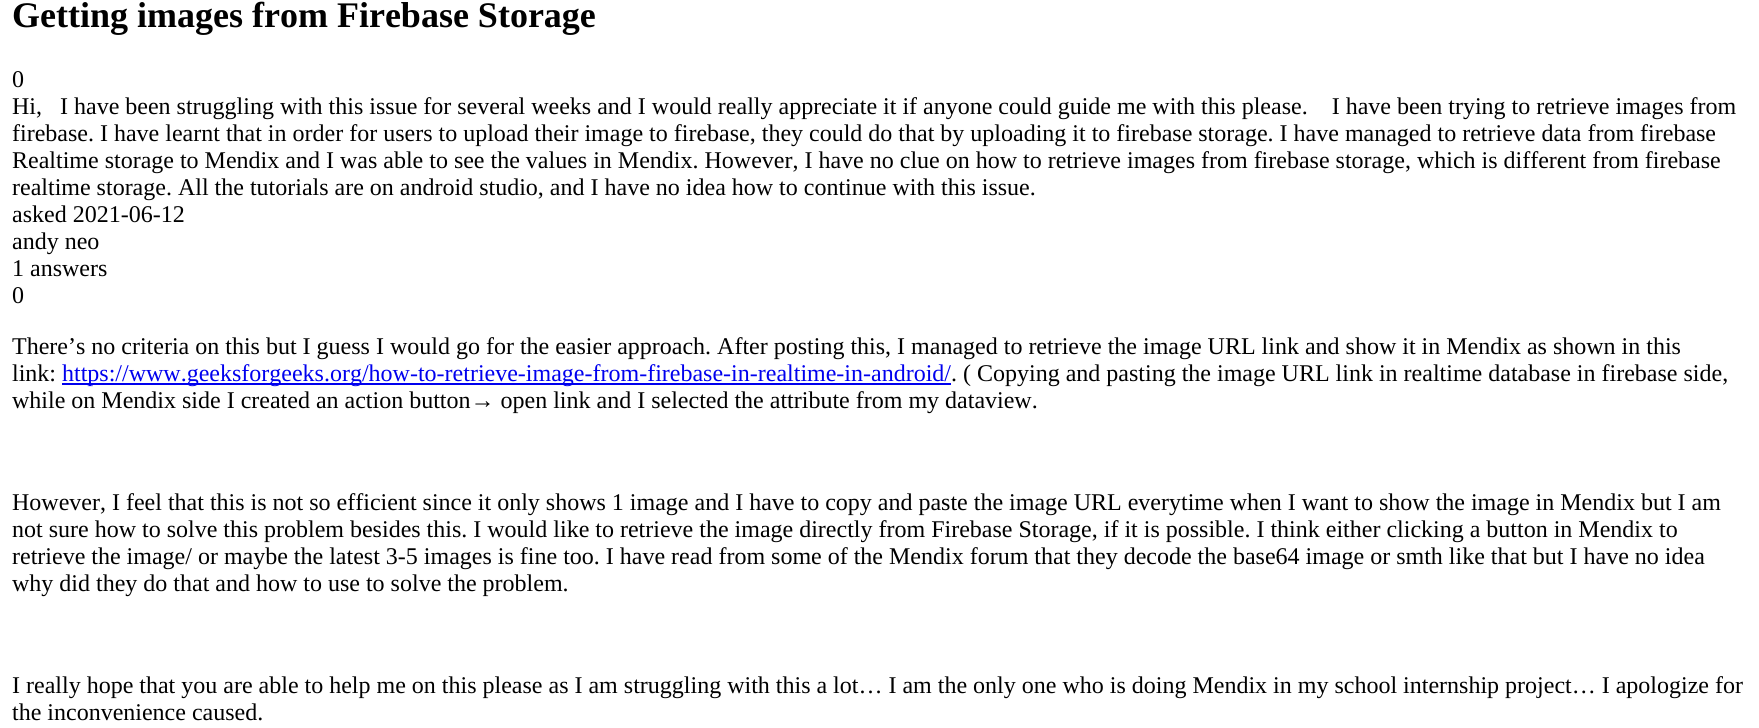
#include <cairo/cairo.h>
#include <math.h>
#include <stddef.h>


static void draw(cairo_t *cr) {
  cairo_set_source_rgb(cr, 1, 1, 1);
  cairo_paint(cr);
  cairo_set_source_rgb(cr, 0, 0, 238 / 255.0);
  cairo_rectangle(cr, 62, 383, 889, 2);
  cairo_fill(cr);
  cairo_select_font_face(cr, "Liberation Serif", CAIRO_FONT_SLANT_NORMAL, CAIRO_FONT_WEIGHT_BOLD);
  cairo_set_font_size(cr, 36);
  cairo_set_source_rgb(cr, 0, 0, 0);
  cairo_move_to(cr, 12, 27);
  cairo_show_text(cr, "Getting images from Firebase Storage");
  cairo_select_font_face(cr, "Liberation Serif", CAIRO_FONT_SLANT_NORMAL, CAIRO_FONT_WEIGHT_NORMAL);
  cairo_set_font_size(cr, 24);
  cairo_move_to(cr, 12, 87);
  cairo_show_text(cr, "0");
  cairo_move_to(cr, 12, 114);
  cairo_show_text(cr, "Hi,   I have been struggling with this issue for several weeks and I would really appreciate it if anyone could guide me with this please.    I have been trying to retrieve images from");
  cairo_move_to(cr, 12, 141);
  cairo_show_text(cr, "firebase. I have learnt that in order for users to upload their image to firebase, they could do that by uploading it to firebase storage. I have managed to retrieve data from firebase");
  cairo_move_to(cr, 12, 168);
  cairo_show_text(cr, "Realtime storage to Mendix and I was able to see the values in Mendix. However, I have no clue on how to retrieve images from firebase storage, which is different from firebase");
  cairo_move_to(cr, 12, 195);
  cairo_show_text(cr, "realtime storage. All the tutorials are on android studio, and I have no idea how to continue with this issue.");
  cairo_move_to(cr, 12, 222);
  cairo_show_text(cr, "asked 2021-06-12");
  cairo_move_to(cr, 12, 249);
  cairo_show_text(cr, "andy neo");
  cairo_move_to(cr, 12, 276);
  cairo_show_text(cr, "1 answers");
  cairo_move_to(cr, 12, 303);
  cairo_show_text(cr, "0");
  cairo_move_to(cr, 12, 354);
  cairo_show_text(cr, "There’s no criteria on this but I guess I would go for the easier approach. After posting this, I managed to retrieve the image URL link and show it in Mendix as shown in this");
  cairo_move_to(cr, 12, 381);
  cairo_show_text(cr, "link:");
  cairo_set_source_rgb(cr, 0, 0, 238 / 255.0);
  cairo_move_to(cr, 62, 381);
  cairo_show_text(cr, "https://www.geeksforgeeks.org/how-to-retrieve-image-from-firebase-in-realtime-in-android/");
  cairo_set_source_rgb(cr, 0, 0, 0);
  cairo_move_to(cr, 951, 381);
  cairo_show_text(cr, ". ( Copying and pasting the image URL link in realtime database in firebase side,");
  cairo_move_to(cr, 12, 408);
  cairo_show_text(cr, "while on Mendix side I created an action button→ open link and I selected the attribute from my dataview.");
  cairo_move_to(cr, 12, 510);
  cairo_show_text(cr, "However, I feel that this is not so efficient since it only shows 1 image and I have to copy and paste the image URL everytime when I want to show the image in Mendix but I am");
  cairo_move_to(cr, 12, 537);
  cairo_show_text(cr, "not sure how to solve this problem besides this. I would like to retrieve the image directly from Firebase Storage, if it is possible. I think either clicking a button in Mendix to");
  cairo_move_to(cr, 12, 564);
  cairo_show_text(cr, "retrieve the image/ or maybe the latest 3-5 images is fine too. I have read from some of the Mendix forum that they decode the base64 image or smth like that but I have no idea");
  cairo_move_to(cr, 12, 591);
  cairo_show_text(cr, "why did they do that and how to use to solve the problem.");
  cairo_move_to(cr, 12, 693);
  cairo_show_text(cr, "I really hope that you are able to help me on this please as I am struggling with this a lot… I am the only one who is doing Mendix in my school internship project… I apologize for");
  cairo_move_to(cr, 12, 720);
  cairo_show_text(cr, "the inconvenience caused.");
}

int main(void) {
  cairo_surface_t *surface = cairo_image_surface_create(CAIRO_FORMAT_RGB24, 1759, 728);
  cairo_t *cr = cairo_create(surface);
  cairo_font_options_t *options = cairo_font_options_create();
  cairo_font_options_set_hint_metrics(options, CAIRO_HINT_METRICS_OFF);
  cairo_font_options_set_hint_style(options, CAIRO_HINT_STYLE_NONE);
  cairo_set_font_options(cr, options);
  cairo_set_miter_limit(cr, 4);
  draw(cr);
  cairo_surface_write_to_png(surface, "out.png");
  cairo_font_options_destroy(options);
  cairo_destroy(cr);
  cairo_surface_destroy(surface);
  return 0;
}
